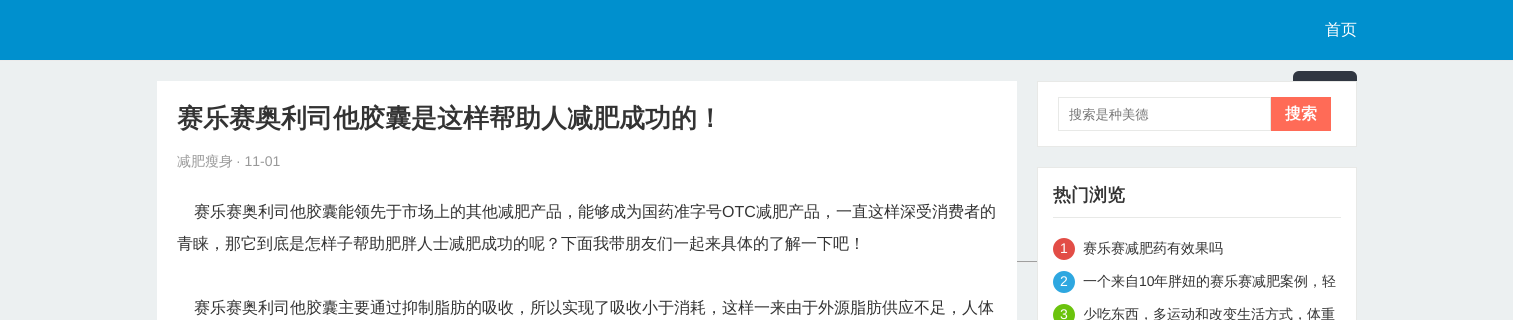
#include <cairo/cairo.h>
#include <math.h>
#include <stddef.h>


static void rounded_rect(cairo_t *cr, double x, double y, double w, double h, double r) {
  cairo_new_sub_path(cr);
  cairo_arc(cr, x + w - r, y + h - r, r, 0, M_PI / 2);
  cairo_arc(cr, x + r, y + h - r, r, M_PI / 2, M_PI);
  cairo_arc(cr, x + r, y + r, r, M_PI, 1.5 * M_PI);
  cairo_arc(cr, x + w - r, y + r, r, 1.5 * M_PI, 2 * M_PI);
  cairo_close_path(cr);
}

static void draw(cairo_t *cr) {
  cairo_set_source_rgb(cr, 236 / 255.0, 240 / 255.0, 241 / 255.0);
  cairo_paint(cr);
  cairo_set_source_rgb(cr, 0, 144 / 255.0, 206 / 255.0);
  cairo_rectangle(cr, 0, 0, 1513, 60);
  cairo_fill(cr);
  cairo_set_source_rgb(cr, 235 / 255.0, 235 / 255.0, 235 / 255.0);
  cairo_rectangle(cr, 0, 60, 1513, 1);
  cairo_fill(cr);
  cairo_set_source_rgb(cr, 48 / 255.0, 54 / 255.0, 65 / 255.0);
  rounded_rect(cr, 1293, 71, 64, 17, 6);
  cairo_fill(cr);
  cairo_set_source_rgb(cr, 159 / 255.0, 159 / 255.0, 159 / 255.0);
  cairo_rectangle(cr, 1017, 261, 20, 1);
  cairo_fill(cr);
  cairo_set_source_rgb(cr, 238 / 255.0, 238 / 255.0, 238 / 255.0);
  cairo_rectangle(cr, 1017, 262, 20, 1);
  cairo_fill(cr);
  cairo_set_source_rgb(cr, 1, 1, 1);
  cairo_rectangle(cr, 157, 81, 860, 239);
  cairo_fill(cr);
  cairo_rectangle(cr, 1037.5, 81.5, 319, 65);
  cairo_fill_preserve(cr);
  cairo_set_source_rgb(cr, 232 / 255.0, 233 / 255.0, 231 / 255.0);
  cairo_set_line_width(cr, 1);
  cairo_stroke(cr);
  cairo_rectangle(cr, 1058.5, 97.5, 212, 33);
  cairo_stroke(cr);
  cairo_set_source_rgb(cr, 1, 107 / 255.0, 87 / 255.0);
  cairo_rectangle(cr, 1271, 97, 60, 34);
  cairo_fill(cr);
  cairo_set_source_rgb(cr, 1, 1, 1);
  cairo_rectangle(cr, 1037.5, 167.5, 319, 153);
  cairo_fill_preserve(cr);
  cairo_set_source_rgb(cr, 232 / 255.0, 233 / 255.0, 231 / 255.0);
  cairo_stroke(cr);
  cairo_rectangle(cr, 1053, 217, 288, 1);
  cairo_fill(cr);
  cairo_set_source_rgb(cr, 226 / 255.0, 77 / 255.0, 70 / 255.0);
  cairo_arc(cr, 1064, 249, 11, 0, 2 * M_PI);
  cairo_fill(cr);
  cairo_set_source_rgb(cr, 46 / 255.0, 167 / 255.0, 224 / 255.0);
  cairo_arc(cr, 1064, 282, 11, 0, 2 * M_PI);
  cairo_fill(cr);
  cairo_set_source_rgb(cr, 107 / 255.0, 195 / 255.0, 13 / 255.0);
  cairo_arc(cr, 1064, 315, 11, 0, 2 * M_PI);
  cairo_fill(cr);
  cairo_select_font_face(cr, "WenQuanYi Zen Hei Medium", CAIRO_FONT_SLANT_NORMAL, CAIRO_FONT_WEIGHT_NORMAL);
  cairo_set_font_size(cr, 16);
  cairo_set_source_rgb(cr, 1, 1, 1);
  cairo_move_to(cr, 1325, 35);
  cairo_show_text(cr, "首页");
  cairo_select_font_face(cr, "WenQuanYi Zen Hei", CAIRO_FONT_SLANT_NORMAL, CAIRO_FONT_WEIGHT_BOLD);
  cairo_set_font_size(cr, 26);
  cairo_set_source_rgb(cr, 51 / 255.0, 51 / 255.0, 51 / 255.0);
  cairo_move_to(cr, 177, 127);
  cairo_show_text(cr, "赛乐赛奥利司他胶囊是这样帮助人减肥成功的！");
  cairo_select_font_face(cr, "WenQuanYi Zen Hei Medium", CAIRO_FONT_SLANT_NORMAL, CAIRO_FONT_WEIGHT_NORMAL);
  cairo_set_font_size(cr, 14);
  cairo_set_source_rgb(cr, 153 / 255.0, 153 / 255.0, 153 / 255.0);
  cairo_move_to(cr, 177, 166);
  cairo_show_text(cr, "减肥瘦身");
  cairo_select_font_face(cr, "Liberation Sans", CAIRO_FONT_SLANT_NORMAL, CAIRO_FONT_WEIGHT_NORMAL);
  cairo_move_to(cr, 236, 166);
  cairo_show_text(cr, "· 11-01");
  cairo_select_font_face(cr, "WenQuanYi Zen Hei Medium", CAIRO_FONT_SLANT_NORMAL, CAIRO_FONT_WEIGHT_NORMAL);
  cairo_set_font_size(cr, 16);
  cairo_set_source_rgb(cr, 51 / 255.0, 51 / 255.0, 51 / 255.0);
  cairo_move_to(cr, 194, 217);
  cairo_show_text(cr, "赛乐赛奥利司他胶囊能领先于市场上的其他减肥产品，能够成为国药准字号");
  cairo_select_font_face(cr, "Liberation Sans", CAIRO_FONT_SLANT_NORMAL, CAIRO_FONT_WEIGHT_NORMAL);
  cairo_move_to(cr, 722, 217);
  cairo_show_text(cr, "OTC");
  cairo_select_font_face(cr, "WenQuanYi Zen Hei Medium", CAIRO_FONT_SLANT_NORMAL, CAIRO_FONT_WEIGHT_NORMAL);
  cairo_move_to(cr, 756, 217);
  cairo_show_text(cr, "减肥产品，一直这样深受消费者的");
  cairo_move_to(cr, 177, 249);
  cairo_show_text(cr, "青睐，那它到底是怎样子帮助肥胖人士减肥成功的呢？下面我带朋友们一起来具体的了解一下吧！");
  cairo_move_to(cr, 194, 313);
  cairo_show_text(cr, "赛乐赛奥利司他胶囊主要通过抑制脂肪的吸收，所以实现了吸收小于消耗，这样一来由于外源脂肪供应不足，人体");
  cairo_set_font_size(cr, 13.25);
  cairo_set_source_rgb(cr, 117 / 255.0, 117 / 255.0, 117 / 255.0);
  cairo_move_to(cr, 1069, 119);
  cairo_show_text(cr, "搜索是种美德");
  cairo_select_font_face(cr, "WenQuanYi Zen Hei", CAIRO_FONT_SLANT_NORMAL, CAIRO_FONT_WEIGHT_BOLD);
  cairo_set_font_size(cr, 16);
  cairo_set_source_rgb(cr, 1, 1, 1);
  cairo_move_to(cr, 1285, 119);
  cairo_show_text(cr, "搜索");
  cairo_set_font_size(cr, 18);
  cairo_set_source_rgb(cr, 51 / 255.0, 51 / 255.0, 51 / 255.0);
  cairo_move_to(cr, 1053, 201);
  cairo_show_text(cr, "热门浏览");
  cairo_select_font_face(cr, "Liberation Sans", CAIRO_FONT_SLANT_NORMAL, CAIRO_FONT_WEIGHT_NORMAL);
  cairo_set_font_size(cr, 14);
  cairo_set_source_rgb(cr, 1, 1, 1);
  cairo_move_to(cr, 1060, 253);
  cairo_show_text(cr, "1");
  cairo_select_font_face(cr, "WenQuanYi Zen Hei Medium", CAIRO_FONT_SLANT_NORMAL, CAIRO_FONT_WEIGHT_NORMAL);
  cairo_set_source_rgb(cr, 51 / 255.0, 51 / 255.0, 51 / 255.0);
  cairo_move_to(cr, 1083, 253);
  cairo_show_text(cr, "赛乐赛减肥药有效果吗");
  cairo_select_font_face(cr, "Liberation Sans", CAIRO_FONT_SLANT_NORMAL, CAIRO_FONT_WEIGHT_NORMAL);
  cairo_set_source_rgb(cr, 1, 1, 1);
  cairo_move_to(cr, 1060, 286);
  cairo_show_text(cr, "2");
  cairo_select_font_face(cr, "WenQuanYi Zen Hei Medium", CAIRO_FONT_SLANT_NORMAL, CAIRO_FONT_WEIGHT_NORMAL);
  cairo_set_source_rgb(cr, 51 / 255.0, 51 / 255.0, 51 / 255.0);
  cairo_move_to(cr, 1083, 286);
  cairo_show_text(cr, "一个来自");
  cairo_select_font_face(cr, "Liberation Sans", CAIRO_FONT_SLANT_NORMAL, CAIRO_FONT_WEIGHT_NORMAL);
  cairo_move_to(cr, 1139, 286);
  cairo_show_text(cr, "10");
  cairo_select_font_face(cr, "WenQuanYi Zen Hei Medium", CAIRO_FONT_SLANT_NORMAL, CAIRO_FONT_WEIGHT_NORMAL);
  cairo_move_to(cr, 1154, 286);
  cairo_show_text(cr, "年胖妞的赛乐赛减肥案例，轻");
  cairo_select_font_face(cr, "Liberation Sans", CAIRO_FONT_SLANT_NORMAL, CAIRO_FONT_WEIGHT_NORMAL);
  cairo_set_source_rgb(cr, 1, 1, 1);
  cairo_move_to(cr, 1060, 319);
  cairo_show_text(cr, "3");
  cairo_select_font_face(cr, "WenQuanYi Zen Hei Medium", CAIRO_FONT_SLANT_NORMAL, CAIRO_FONT_WEIGHT_NORMAL);
  cairo_set_source_rgb(cr, 51 / 255.0, 51 / 255.0, 51 / 255.0);
  cairo_move_to(cr, 1083, 319);
  cairo_show_text(cr, "少吃东西，多运动和改变生活方式，体重");
}

int main(void) {
  cairo_surface_t *surface = cairo_image_surface_create(CAIRO_FORMAT_RGB24, 1513, 320);
  cairo_t *cr = cairo_create(surface);
  cairo_font_options_t *options = cairo_font_options_create();
  cairo_font_options_set_hint_metrics(options, CAIRO_HINT_METRICS_OFF);
  cairo_font_options_set_hint_style(options, CAIRO_HINT_STYLE_NONE);
  cairo_set_font_options(cr, options);
  cairo_set_miter_limit(cr, 4);
  draw(cr);
  cairo_surface_write_to_png(surface, "out.png");
  cairo_font_options_destroy(options);
  cairo_destroy(cr);
  cairo_surface_destroy(surface);
  return 0;
}
